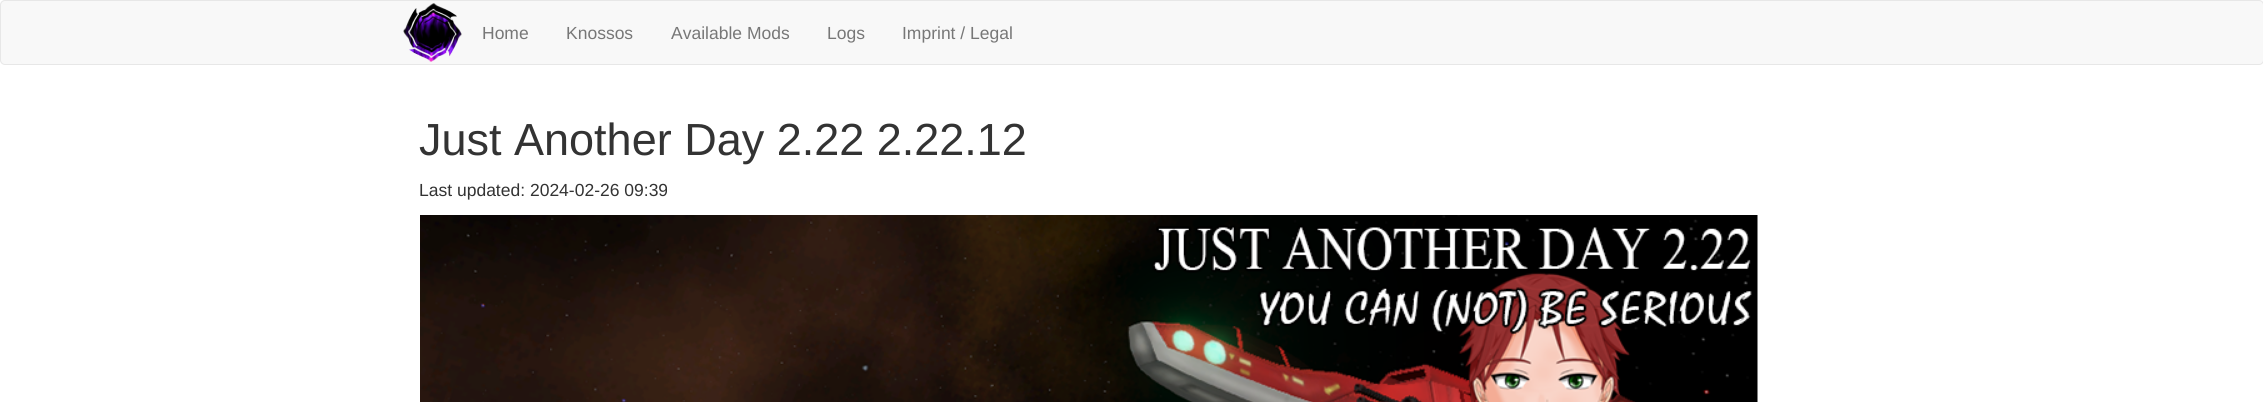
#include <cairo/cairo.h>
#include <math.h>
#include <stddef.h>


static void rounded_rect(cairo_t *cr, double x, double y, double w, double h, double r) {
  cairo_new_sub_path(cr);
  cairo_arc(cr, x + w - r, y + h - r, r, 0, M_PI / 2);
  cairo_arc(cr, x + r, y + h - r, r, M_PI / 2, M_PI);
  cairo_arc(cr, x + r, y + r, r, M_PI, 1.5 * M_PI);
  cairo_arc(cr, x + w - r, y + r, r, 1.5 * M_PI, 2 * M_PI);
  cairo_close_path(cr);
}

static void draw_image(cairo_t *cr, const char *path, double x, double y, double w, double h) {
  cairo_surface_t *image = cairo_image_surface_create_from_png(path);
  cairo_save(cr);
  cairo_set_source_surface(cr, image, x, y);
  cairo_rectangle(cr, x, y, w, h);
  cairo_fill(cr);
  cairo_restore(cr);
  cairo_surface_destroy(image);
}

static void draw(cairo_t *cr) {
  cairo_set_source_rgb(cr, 1, 1, 1);
  cairo_paint(cr);
  cairo_set_source_rgb(cr, 248 / 255.0, 248 / 255.0, 248 / 255.0);
  rounded_rect(cr, 0.5, 0.5, 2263, 64, 4.5);
  cairo_fill_preserve(cr);
  cairo_set_source_rgb(cr, 231 / 255.0, 231 / 255.0, 231 / 255.0);
  cairo_set_line_width(cr, 1);
  cairo_stroke(cr);
  draw_image(cr, "images/1.png", 403, 3, 59, 59);
  draw_image(cr, "images/2.png", 420, 215, 1338, 187);
  cairo_select_font_face(cr, "Liberation Sans", CAIRO_FONT_SLANT_NORMAL, CAIRO_FONT_WEIGHT_NORMAL);
  cairo_set_font_size(cr, 17.5);
  cairo_set_source_rgb(cr, 119 / 255.0, 119 / 255.0, 119 / 255.0);
  cairo_move_to(cr, 482, 39);
  cairo_show_text(cr, "Home");
  cairo_move_to(cr, 566, 39);
  cairo_show_text(cr, "Knossos");
  cairo_move_to(cr, 671, 39);
  cairo_show_text(cr, "Available Mods");
  cairo_move_to(cr, 827, 39);
  cairo_show_text(cr, "Logs");
  cairo_move_to(cr, 902, 39);
  cairo_show_text(cr, "Imprint / Legal");
  cairo_set_font_size(cr, 45);
  cairo_set_source_rgb(cr, 51 / 255.0, 51 / 255.0, 51 / 255.0);
  cairo_move_to(cr, 419, 155);
  cairo_show_text(cr, "Just Another Day 2.22 2.22.12");
  cairo_set_font_size(cr, 17.5);
  cairo_move_to(cr, 419, 196);
  cairo_show_text(cr, "Last updated: 2024-02-26 09:39");
}

int main(void) {
  cairo_surface_t *surface = cairo_image_surface_create(CAIRO_FORMAT_RGB24, 2263, 402);
  cairo_t *cr = cairo_create(surface);
  cairo_font_options_t *options = cairo_font_options_create();
  cairo_font_options_set_hint_metrics(options, CAIRO_HINT_METRICS_OFF);
  cairo_font_options_set_hint_style(options, CAIRO_HINT_STYLE_NONE);
  cairo_set_font_options(cr, options);
  cairo_set_miter_limit(cr, 4);
  draw(cr);
  cairo_surface_write_to_png(surface, "out.png");
  cairo_font_options_destroy(options);
  cairo_destroy(cr);
  cairo_surface_destroy(surface);
  return 0;
}
